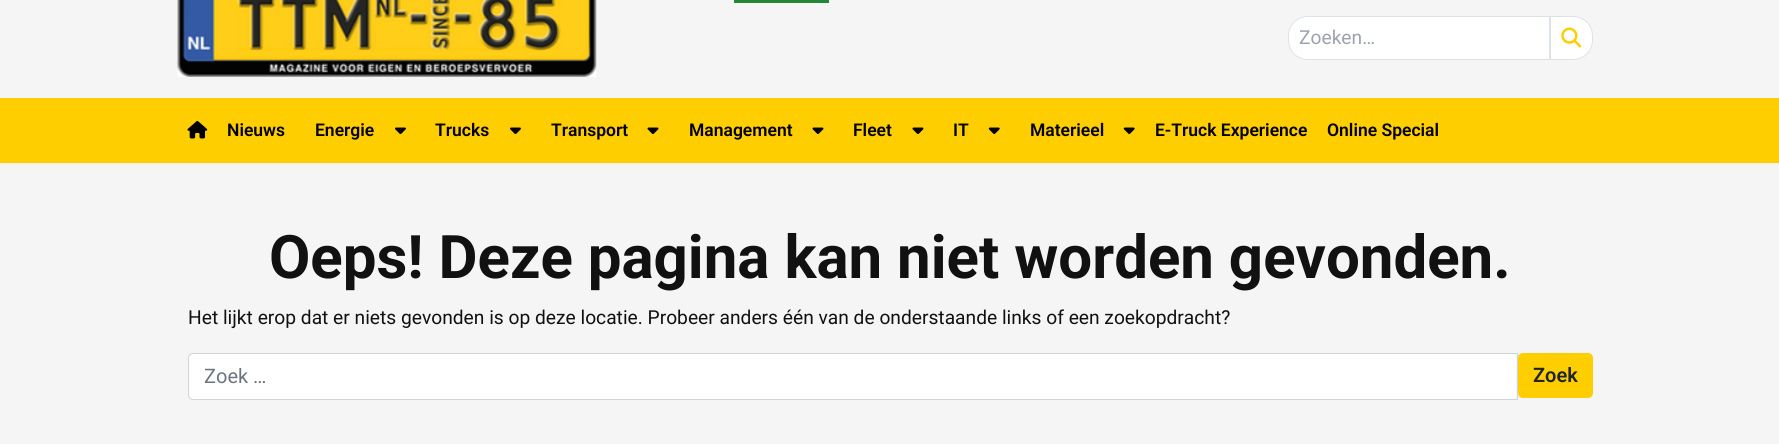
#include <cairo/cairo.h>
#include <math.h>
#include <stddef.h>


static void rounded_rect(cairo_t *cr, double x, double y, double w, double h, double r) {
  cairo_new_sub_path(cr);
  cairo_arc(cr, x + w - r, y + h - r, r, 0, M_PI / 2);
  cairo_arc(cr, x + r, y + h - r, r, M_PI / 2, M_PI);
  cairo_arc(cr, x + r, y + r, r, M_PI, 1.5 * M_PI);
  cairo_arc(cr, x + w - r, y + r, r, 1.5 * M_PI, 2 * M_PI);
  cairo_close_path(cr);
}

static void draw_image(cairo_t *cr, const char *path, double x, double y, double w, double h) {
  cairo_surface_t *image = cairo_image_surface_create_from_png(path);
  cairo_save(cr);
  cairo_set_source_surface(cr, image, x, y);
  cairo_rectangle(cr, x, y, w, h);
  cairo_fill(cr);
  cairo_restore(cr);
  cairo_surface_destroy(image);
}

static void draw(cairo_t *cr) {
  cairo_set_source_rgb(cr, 245 / 255.0, 245 / 255.0, 245 / 255.0);
  cairo_paint(cr);
  draw_image(cr, "images/1.png", 177, 0, 420, 77);
  cairo_set_source_rgb(cr, 34 / 255.0, 135 / 255.0, 54 / 255.0);
  cairo_rectangle(cr, 734, 0, 95, 3);
  cairo_fill(cr);
  cairo_set_source_rgb(cr, 1, 1, 1);
  cairo_new_path(cr);
  cairo_move_to(cr, 1308, 16.5);
  cairo_line_to(cr, 1549.5, 16.5);
  cairo_line_to(cr, 1549.5, 59.5);
  cairo_line_to(cr, 1308, 59.5);
  cairo_curve_to(cr, 1297, 59.5, 1288.5, 51, 1288.5, 40);
  cairo_line_to(cr, 1288.5, 36);
  cairo_curve_to(cr, 1288.5, 25, 1297, 16.5, 1308, 16.5);
  cairo_close_path(cr);
  cairo_fill_preserve(cr);
  cairo_set_source_rgb(cr, 222 / 255.0, 226 / 255.0, 230 / 255.0);
  cairo_set_line_width(cr, 1);
  cairo_stroke(cr);
  cairo_set_source_rgb(cr, 1, 1, 1);
  cairo_new_path(cr);
  cairo_move_to(cr, 1550.5, 16.5);
  cairo_line_to(cr, 1573, 16.5);
  cairo_curve_to(cr, 1584, 16.5, 1592.5, 25, 1592.5, 36);
  cairo_line_to(cr, 1592.5, 40);
  cairo_curve_to(cr, 1592.5, 51, 1584, 59.5, 1573, 59.5);
  cairo_line_to(cr, 1550.5, 59.5);
  cairo_close_path(cr);
  cairo_fill_preserve(cr);
  cairo_set_source_rgb(cr, 222 / 255.0, 226 / 255.0, 230 / 255.0);
  cairo_stroke(cr);
  draw_image(cr, "images/2.png", 1561, 27, 21, 21);
  cairo_set_source_rgb(cr, 254 / 255.0, 206 / 255.0, 0);
  cairo_rectangle(cr, 0, 98, 1779, 65);
  cairo_fill(cr);
  draw_image(cr, "images/3.png", 187, 121, 21, 18);
  draw_image(cr, "images/4.png", 395, 127, 11, 7);
  draw_image(cr, "images/4.png", 510, 127, 11, 7);
  draw_image(cr, "images/5.png", 647, 127, 12, 7);
  draw_image(cr, "images/5.png", 812, 127, 12, 7);
  draw_image(cr, "images/5.png", 912, 127, 12, 7);
  draw_image(cr, "images/6.png", 988, 127, 12, 7);
  draw_image(cr, "images/6.png", 1123, 127, 12, 7);
  cairo_set_source_rgb(cr, 1, 1, 1);
  cairo_new_path(cr);
  cairo_move_to(cr, 193, 354);
  cairo_line_to(cr, 1516, 354);
  cairo_line_to(cr, 1516, 399);
  cairo_line_to(cr, 193, 399);
  cairo_curve_to(cr, 191, 399, 189, 397, 189, 395);
  cairo_line_to(cr, 189, 358);
  cairo_curve_to(cr, 189, 356, 191, 354, 193, 354);
  cairo_close_path(cr);
  cairo_fill(cr);
  cairo_new_path(cr);
  cairo_move_to(cr, 193, 353.5);
  cairo_line_to(cr, 1517.5, 353.5);
  cairo_line_to(cr, 1517.5, 399.5);
  cairo_line_to(cr, 193, 399.5);
  cairo_curve_to(cr, 190.5, 399.5, 188.5, 397.5, 188.5, 395);
  cairo_line_to(cr, 188.5, 358);
  cairo_curve_to(cr, 188.5, 355.5, 190.5, 353.5, 193, 353.5);
  cairo_close_path(cr);
  cairo_set_source_rgb(cr, 206 / 255.0, 212 / 255.0, 218 / 255.0);
  cairo_stroke(cr);
  cairo_set_source_rgb(cr, 254 / 255.0, 206 / 255.0, 0);
  rounded_rect(cr, 1518, 353, 75, 45, 5);
  cairo_fill(cr);
  cairo_select_font_face(cr, "Roboto", CAIRO_FONT_SLANT_NORMAL, CAIRO_FONT_WEIGHT_NORMAL);
  cairo_set_font_size(cr, 19.2);
  cairo_set_source_rgb(cr, 156 / 255.0, 163 / 255.0, 175 / 255.0);
  cairo_move_to(cr, 1299, 44);
  cairo_show_text(cr, "Zoeken…");
  cairo_select_font_face(cr, "Roboto SemiBold", CAIRO_FONT_SLANT_NORMAL, CAIRO_FONT_WEIGHT_NORMAL);
  cairo_set_font_size(cr, 17.5);
  cairo_set_source_rgb(cr, 0, 0, 0);
  cairo_move_to(cr, 227, 136);
  cairo_show_text(cr, "Nieuws");
  cairo_move_to(cr, 315, 136);
  cairo_show_text(cr, "Energie");
  cairo_move_to(cr, 435, 136);
  cairo_show_text(cr, "Trucks");
  cairo_move_to(cr, 551, 136);
  cairo_show_text(cr, "Transport");
  cairo_move_to(cr, 689, 136);
  cairo_show_text(cr, "Management");
  cairo_move_to(cr, 853, 136);
  cairo_show_text(cr, "Fleet");
  cairo_move_to(cr, 953, 136);
  cairo_show_text(cr, "IT");
  cairo_move_to(cr, 1030, 136);
  cairo_show_text(cr, "Materieel");
  cairo_move_to(cr, 1155, 136);
  cairo_show_text(cr, "E-Truck Experience");
  cairo_move_to(cr, 1327, 136);
  cairo_show_text(cr, "Online Special");
  cairo_select_font_face(cr, "Roboto", CAIRO_FONT_SLANT_NORMAL, CAIRO_FONT_WEIGHT_BOLD);
  cairo_set_font_size(cr, 60);
  cairo_set_source_rgb(cr, 17 / 255.0, 17 / 255.0, 17 / 255.0);
  cairo_move_to(cr, 269, 278);
  cairo_show_text(cr, "Oeps! Deze pagina kan niet worden gevonden.");
  cairo_select_font_face(cr, "Roboto", CAIRO_FONT_SLANT_NORMAL, CAIRO_FONT_WEIGHT_NORMAL);
  cairo_set_font_size(cr, 19.2);
  cairo_move_to(cr, 188, 324);
  cairo_show_text(cr, "Het lijkt erop dat er niets gevonden is op deze locatie. Probeer anders één van de onderstaande links of een zoekopdracht?");
  cairo_set_font_size(cr, 20);
  cairo_set_source_rgb(cr, 108 / 255.0, 117 / 255.0, 125 / 255.0);
  cairo_move_to(cr, 204, 383);
  cairo_show_text(cr, "Zoek …");
  cairo_select_font_face(cr, "Roboto SemiBold", CAIRO_FONT_SLANT_NORMAL, CAIRO_FONT_WEIGHT_NORMAL);
  cairo_set_source_rgb(cr, 33 / 255.0, 37 / 255.0, 41 / 255.0);
  cairo_move_to(cr, 1533, 382);
  cairo_show_text(cr, "Zoek");
}

int main(void) {
  cairo_surface_t *surface = cairo_image_surface_create(CAIRO_FORMAT_RGB24, 1779, 444);
  cairo_t *cr = cairo_create(surface);
  cairo_font_options_t *options = cairo_font_options_create();
  cairo_font_options_set_hint_metrics(options, CAIRO_HINT_METRICS_OFF);
  cairo_font_options_set_hint_style(options, CAIRO_HINT_STYLE_NONE);
  cairo_set_font_options(cr, options);
  cairo_set_miter_limit(cr, 4);
  draw(cr);
  cairo_surface_write_to_png(surface, "out.png");
  cairo_font_options_destroy(options);
  cairo_destroy(cr);
  cairo_surface_destroy(surface);
  return 0;
}
